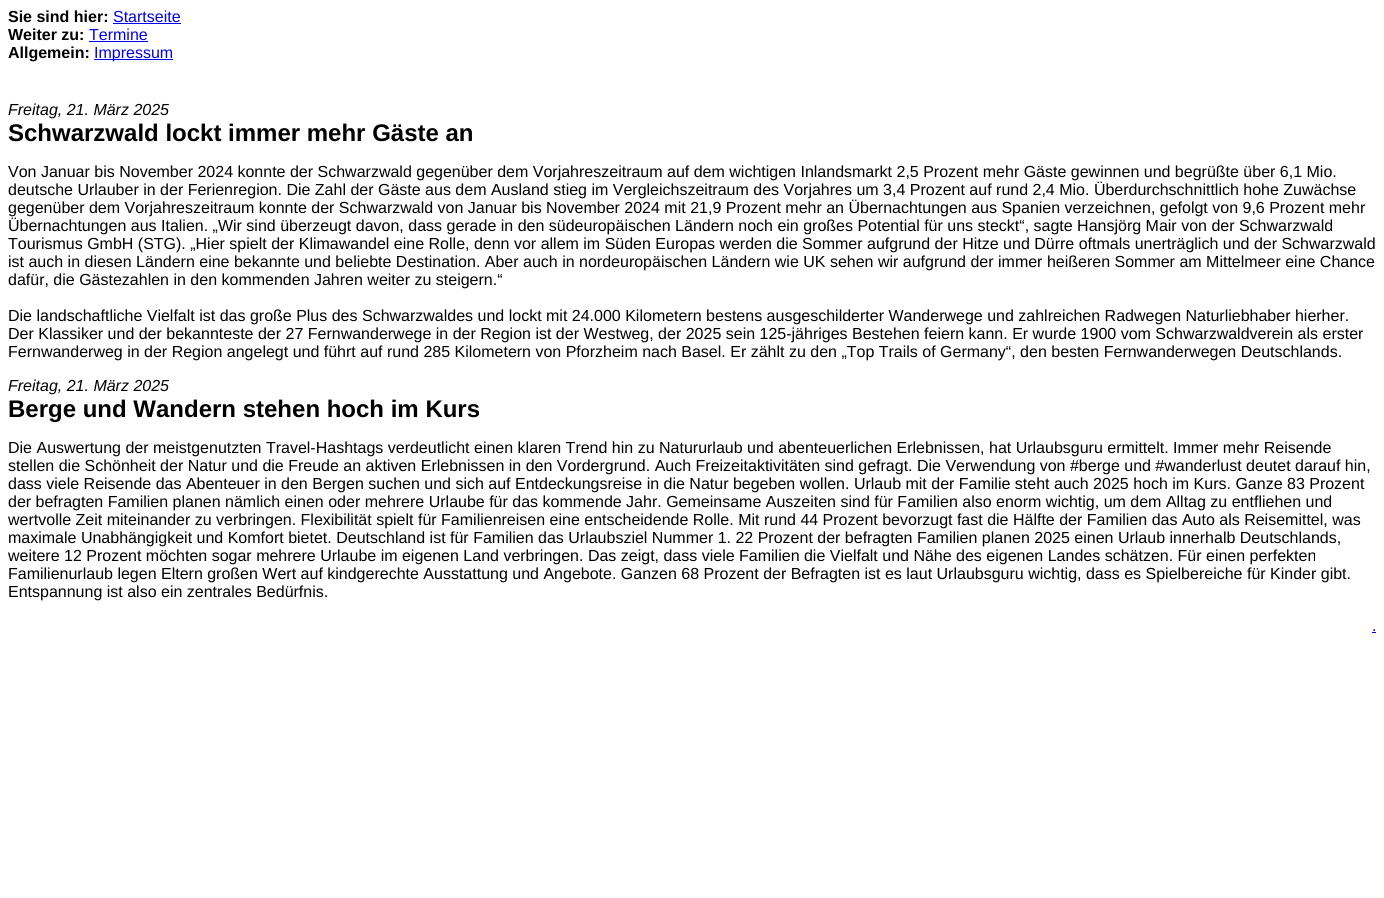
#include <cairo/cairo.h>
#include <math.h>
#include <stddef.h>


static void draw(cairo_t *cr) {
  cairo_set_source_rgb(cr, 1, 1, 1);
  cairo_paint(cr);
  cairo_set_source_rgb(cr, 0, 0, 238 / 255.0);
  cairo_rectangle(cr, 113, 23, 68, 1);
  cairo_fill(cr);
  cairo_rectangle(cr, 89, 41, 59, 1);
  cairo_fill(cr);
  cairo_rectangle(cr, 94, 59, 79, 1);
  cairo_fill(cr);
  cairo_rectangle(cr, 1372, 632, 4, 1);
  cairo_fill(cr);
  cairo_select_font_face(cr, "Liberation Sans", CAIRO_FONT_SLANT_NORMAL, CAIRO_FONT_WEIGHT_BOLD);
  cairo_set_font_size(cr, 16);
  cairo_set_source_rgb(cr, 0, 0, 0);
  cairo_move_to(cr, 8, 22);
  cairo_show_text(cr, "Sie sind hier:");
  cairo_select_font_face(cr, "Liberation Sans", CAIRO_FONT_SLANT_NORMAL, CAIRO_FONT_WEIGHT_NORMAL);
  cairo_set_source_rgb(cr, 0, 0, 238 / 255.0);
  cairo_move_to(cr, 113, 22);
  cairo_show_text(cr, "Startseite");
  cairo_select_font_face(cr, "Liberation Sans", CAIRO_FONT_SLANT_NORMAL, CAIRO_FONT_WEIGHT_BOLD);
  cairo_set_source_rgb(cr, 0, 0, 0);
  cairo_move_to(cr, 8, 40);
  cairo_show_text(cr, "Weiter zu:");
  cairo_select_font_face(cr, "Liberation Sans", CAIRO_FONT_SLANT_NORMAL, CAIRO_FONT_WEIGHT_NORMAL);
  cairo_set_source_rgb(cr, 0, 0, 238 / 255.0);
  cairo_move_to(cr, 89, 40);
  cairo_show_text(cr, "Termine");
  cairo_select_font_face(cr, "Liberation Sans", CAIRO_FONT_SLANT_NORMAL, CAIRO_FONT_WEIGHT_BOLD);
  cairo_set_source_rgb(cr, 0, 0, 0);
  cairo_move_to(cr, 8, 58);
  cairo_show_text(cr, "Allgemein:");
  cairo_select_font_face(cr, "Liberation Sans", CAIRO_FONT_SLANT_NORMAL, CAIRO_FONT_WEIGHT_NORMAL);
  cairo_set_source_rgb(cr, 0, 0, 238 / 255.0);
  cairo_move_to(cr, 94, 58);
  cairo_show_text(cr, "Impressum");
  cairo_select_font_face(cr, "Liberation Sans", CAIRO_FONT_SLANT_ITALIC, CAIRO_FONT_WEIGHT_NORMAL);
  cairo_set_source_rgb(cr, 0, 0, 0);
  cairo_move_to(cr, 8, 115);
  cairo_show_text(cr, "Freitag, 21. März 2025");
  cairo_select_font_face(cr, "Liberation Sans", CAIRO_FONT_SLANT_NORMAL, CAIRO_FONT_WEIGHT_BOLD);
  cairo_set_font_size(cr, 24);
  cairo_move_to(cr, 8, 141);
  cairo_show_text(cr, "Schwarzwald lockt immer mehr Gäste an");
  cairo_select_font_face(cr, "Liberation Sans", CAIRO_FONT_SLANT_NORMAL, CAIRO_FONT_WEIGHT_NORMAL);
  cairo_set_font_size(cr, 16);
  cairo_move_to(cr, 8, 177);
  cairo_show_text(cr, "Von Januar bis November 2024 konnte der Schwarzwald gegenüber dem Vorjahreszeitraum auf dem wichtigen Inlandsmarkt 2,5 Prozent mehr Gäste gewinnen und begrüßte über 6,1 Mio.");
  cairo_move_to(cr, 8, 195);
  cairo_show_text(cr, "deutsche Urlauber in der Ferienregion. Die Zahl der Gäste aus dem Ausland stieg im Vergleichszeitraum des Vorjahres um 3,4 Prozent auf rund 2,4 Mio. Überdurchschnittlich hohe Zuwächse");
  cairo_move_to(cr, 8, 213);
  cairo_show_text(cr, "gegenüber dem Vorjahreszeitraum konnte der Schwarzwald von Januar bis November 2024 mit 21,9 Prozent mehr an Übernachtungen aus Spanien verzeichnen, gefolgt von 9,6 Prozent mehr");
  cairo_move_to(cr, 8, 231);
  cairo_show_text(cr, "Übernachtungen aus Italien. „Wir sind überzeugt davon, dass gerade in den südeuropäischen Ländern noch ein großes Potential für uns steckt“, sagte Hansjörg Mair von der Schwarzwald");
  cairo_move_to(cr, 8, 249);
  cairo_show_text(cr, "Tourismus GmbH (STG). „Hier spielt der Klimawandel eine Rolle, denn vor allem im Süden Europas werden die Sommer aufgrund der Hitze und Dürre oftmals unerträglich und der Schwarzwald");
  cairo_move_to(cr, 8, 267);
  cairo_show_text(cr, "ist auch in diesen Ländern eine bekannte und beliebte Destination. Aber auch in nordeuropäischen Ländern wie UK sehen wir aufgrund der immer heißeren Sommer am Mittelmeer eine Chance");
  cairo_move_to(cr, 8, 285);
  cairo_show_text(cr, "dafür, die Gästezahlen in den kommenden Jahren weiter zu steigern.“");
  cairo_move_to(cr, 8, 321);
  cairo_show_text(cr, "Die landschaftliche Vielfalt ist das große Plus des Schwarzwaldes und lockt mit 24.000 Kilometern bestens ausgeschilderter Wanderwege und zahlreichen Radwegen Naturliebhaber hierher.");
  cairo_move_to(cr, 8, 339);
  cairo_show_text(cr, "Der Klassiker und der bekannteste der 27 Fernwanderwege in der Region ist der Westweg, der 2025 sein 125-jähriges Bestehen feiern kann. Er wurde 1900 vom Schwarzwaldverein als erster");
  cairo_move_to(cr, 8, 357);
  cairo_show_text(cr, "Fernwanderweg in der Region angelegt und führt auf rund 285 Kilometern von Pforzheim nach Basel. Er zählt zu den „Top Trails of Germany“, den besten Fernwanderwegen Deutschlands.");
  cairo_select_font_face(cr, "Liberation Sans", CAIRO_FONT_SLANT_ITALIC, CAIRO_FONT_WEIGHT_NORMAL);
  cairo_move_to(cr, 8, 391);
  cairo_show_text(cr, "Freitag, 21. März 2025");
  cairo_select_font_face(cr, "Liberation Sans", CAIRO_FONT_SLANT_NORMAL, CAIRO_FONT_WEIGHT_BOLD);
  cairo_set_font_size(cr, 24);
  cairo_move_to(cr, 8, 417);
  cairo_show_text(cr, "Berge und Wandern stehen hoch im Kurs");
  cairo_select_font_face(cr, "Liberation Sans", CAIRO_FONT_SLANT_NORMAL, CAIRO_FONT_WEIGHT_NORMAL);
  cairo_set_font_size(cr, 16);
  cairo_move_to(cr, 8, 453);
  cairo_show_text(cr, "Die Auswertung der meistgenutzten Travel-Hashtags verdeutlicht einen klaren Trend hin zu Natururlaub und abenteuerlichen Erlebnissen, hat Urlaubsguru ermittelt. Immer mehr Reisende");
  cairo_move_to(cr, 8, 471);
  cairo_show_text(cr, "stellen die Schönheit der Natur und die Freude an aktiven Erlebnissen in den Vordergrund. Auch Freizeitaktivitäten sind gefragt. Die Verwendung von #berge und #wanderlust deutet darauf hin,");
  cairo_move_to(cr, 8, 489);
  cairo_show_text(cr, "dass viele Reisende das Abenteuer in den Bergen suchen und sich auf Entdeckungsreise in die Natur begeben wollen. Urlaub mit der Familie steht auch 2025 hoch im Kurs. Ganze 83 Prozent");
  cairo_move_to(cr, 8, 507);
  cairo_show_text(cr, "der befragten Familien planen nämlich einen oder mehrere Urlaube für das kommende Jahr. Gemeinsame Auszeiten sind für Familien also enorm wichtig, um dem Alltag zu entfliehen und");
  cairo_move_to(cr, 8, 525);
  cairo_show_text(cr, "wertvolle Zeit miteinander zu verbringen. Flexibilität spielt für Familienreisen eine entscheidende Rolle. Mit rund 44 Prozent bevorzugt fast die Hälfte der Familien das Auto als Reisemittel, was");
  cairo_move_to(cr, 8, 543);
  cairo_show_text(cr, "maximale Unabhängigkeit und Komfort bietet. Deutschland ist für Familien das Urlaubsziel Nummer 1. 22 Prozent der befragten Familien planen 2025 einen Urlaub innerhalb Deutschlands,");
  cairo_move_to(cr, 8, 561);
  cairo_show_text(cr, "weitere 12 Prozent möchten sogar mehrere Urlaube im eigenen Land verbringen. Das zeigt, dass viele Familien die Vielfalt und Nähe des eigenen Landes schätzen. Für einen perfekten");
  cairo_move_to(cr, 8, 579);
  cairo_show_text(cr, "Familienurlaub legen Eltern großen Wert auf kindgerechte Ausstattung und Angebote. Ganzen 68 Prozent der Befragten ist es laut Urlaubsguru wichtig, dass es Spielbereiche für Kinder gibt.");
  cairo_move_to(cr, 8, 597);
  cairo_show_text(cr, "Entspannung ist also ein zentrales Bedürfnis.");
  cairo_set_source_rgb(cr, 0, 0, 238 / 255.0);
  cairo_move_to(cr, 1372, 631);
  cairo_show_text(cr, ".");
}

int main(void) {
  cairo_surface_t *surface = cairo_image_surface_create(CAIRO_FORMAT_RGB24, 1384, 898);
  cairo_t *cr = cairo_create(surface);
  cairo_font_options_t *options = cairo_font_options_create();
  cairo_font_options_set_hint_metrics(options, CAIRO_HINT_METRICS_OFF);
  cairo_font_options_set_hint_style(options, CAIRO_HINT_STYLE_NONE);
  cairo_set_font_options(cr, options);
  cairo_set_miter_limit(cr, 4);
  draw(cr);
  cairo_surface_write_to_png(surface, "out.png");
  cairo_font_options_destroy(options);
  cairo_destroy(cr);
  cairo_surface_destroy(surface);
  return 0;
}
